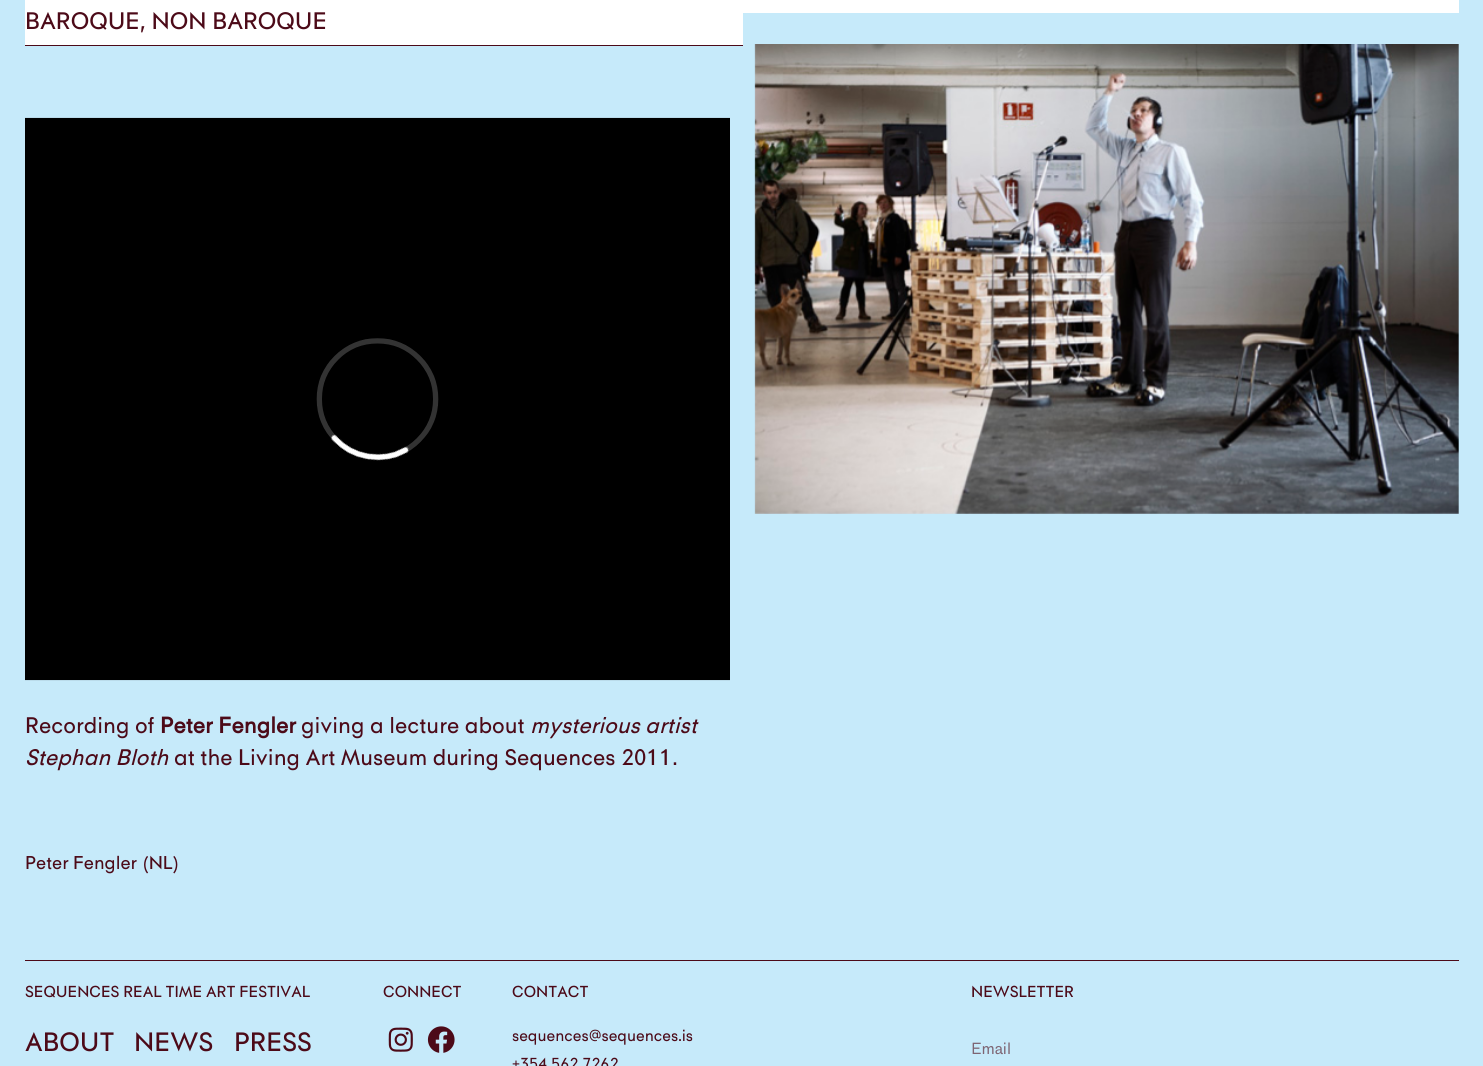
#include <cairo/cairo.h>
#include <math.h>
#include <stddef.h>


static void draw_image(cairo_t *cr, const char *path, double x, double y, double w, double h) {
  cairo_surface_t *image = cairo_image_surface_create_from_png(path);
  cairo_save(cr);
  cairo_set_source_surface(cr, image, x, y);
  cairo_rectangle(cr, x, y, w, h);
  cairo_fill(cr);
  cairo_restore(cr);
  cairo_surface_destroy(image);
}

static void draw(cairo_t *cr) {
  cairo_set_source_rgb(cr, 198 / 255.0, 234 / 255.0, 250 / 255.0);
  cairo_paint(cr);
  cairo_set_source_rgb(cr, 1, 1, 1);
  cairo_rectangle(cr, 743, 0, 716, 13);
  cairo_fill(cr);
  cairo_rectangle(cr, 25, 0, 718, 45);
  cairo_fill(cr);
  cairo_set_source_rgb(cr, 76 / 255.0, 10 / 255.0, 24 / 255.0);
  cairo_rectangle(cr, 25, 45, 718, 1);
  cairo_fill(cr);
  draw_image(cr, "images/1.png", 754, 44, 705, 470);
  draw_image(cr, "images/2.png", 25, 117, 705, 564);
  cairo_rectangle(cr, 25, 960, 1434, 1);
  cairo_fill(cr);
  draw_image(cr, "images/3.png", 388, 1027, 25, 25);
  draw_image(cr, "images/4.png", 427, 1026, 28, 27);
  cairo_select_font_face(cr, "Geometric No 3 Medium", CAIRO_FONT_SLANT_NORMAL, CAIRO_FONT_WEIGHT_NORMAL);
  cairo_set_font_size(cr, 22.5);
  cairo_move_to(cr, 25, 29);
  cairo_show_text(cr, "BAROQUE, NON BAROQUE");
  cairo_set_font_size(cr, 21.25);
  cairo_move_to(cr, 25, 733);
  cairo_show_text(cr, "Recording of");
  cairo_select_font_face(cr, "Geometric No 3", CAIRO_FONT_SLANT_NORMAL, CAIRO_FONT_WEIGHT_BOLD);
  cairo_move_to(cr, 160, 733);
  cairo_show_text(cr, "Peter Fengler");
  cairo_select_font_face(cr, "Geometric No 3 Medium", CAIRO_FONT_SLANT_NORMAL, CAIRO_FONT_WEIGHT_NORMAL);
  cairo_move_to(cr, 301, 733);
  cairo_show_text(cr, "giving a lecture about");
  cairo_select_font_face(cr, "Geometric No 3 Medium", CAIRO_FONT_SLANT_ITALIC, CAIRO_FONT_WEIGHT_NORMAL);
  cairo_move_to(cr, 530, 733);
  cairo_show_text(cr, "mysterious artist");
  cairo_move_to(cr, 25, 765);
  cairo_show_text(cr, "Stephan Bloth");
  cairo_select_font_face(cr, "Geometric No 3 Medium", CAIRO_FONT_SLANT_NORMAL, CAIRO_FONT_WEIGHT_NORMAL);
  cairo_move_to(cr, 174, 765);
  cairo_show_text(cr, "at the Living Art Museum during Sequences 2011.");
  cairo_set_font_size(cr, 17.5);
  cairo_move_to(cr, 25, 869);
  cairo_show_text(cr, "Peter Fengler");
  cairo_move_to(cr, 143, 869);
  cairo_show_text(cr, "(NL)");
  cairo_set_font_size(cr, 15);
  cairo_move_to(cr, 25, 997);
  cairo_show_text(cr, "SEQUENCES REAL TIME ART FESTIVAL");
  cairo_set_font_size(cr, 25);
  cairo_move_to(cr, 25, 1051);
  cairo_show_text(cr, "ABOUT");
  cairo_move_to(cr, 134, 1051);
  cairo_show_text(cr, "NEWS");
  cairo_move_to(cr, 234, 1051);
  cairo_show_text(cr, "PRESS");
  cairo_set_font_size(cr, 15);
  cairo_move_to(cr, 383, 997);
  cairo_show_text(cr, "CONNECT");
  cairo_move_to(cr, 512, 997);
  cairo_show_text(cr, "CONTACT");
  cairo_move_to(cr, 512, 1041);
  cairo_show_text(cr, "sequences@sequences.is");
  cairo_move_to(cr, 512, 1069);
  cairo_show_text(cr, "+354 562 7262");
  cairo_move_to(cr, 971, 997);
  cairo_show_text(cr, "NEWSLETTER");
  cairo_select_font_face(cr, "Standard", CAIRO_FONT_SLANT_NORMAL, CAIRO_FONT_WEIGHT_NORMAL);
  cairo_set_source_rgb(cr, 125 / 255.0, 100 / 255.0, 114 / 255.0);
  cairo_move_to(cr, 971, 1054);
  cairo_show_text(cr, "Email");
}

int main(void) {
  cairo_surface_t *surface = cairo_image_surface_create(CAIRO_FORMAT_RGB24, 1483, 1066);
  cairo_t *cr = cairo_create(surface);
  cairo_font_options_t *options = cairo_font_options_create();
  cairo_font_options_set_hint_metrics(options, CAIRO_HINT_METRICS_OFF);
  cairo_font_options_set_hint_style(options, CAIRO_HINT_STYLE_NONE);
  cairo_set_font_options(cr, options);
  cairo_set_miter_limit(cr, 4);
  draw(cr);
  cairo_surface_write_to_png(surface, "out.png");
  cairo_font_options_destroy(options);
  cairo_destroy(cr);
  cairo_surface_destroy(surface);
  return 0;
}
